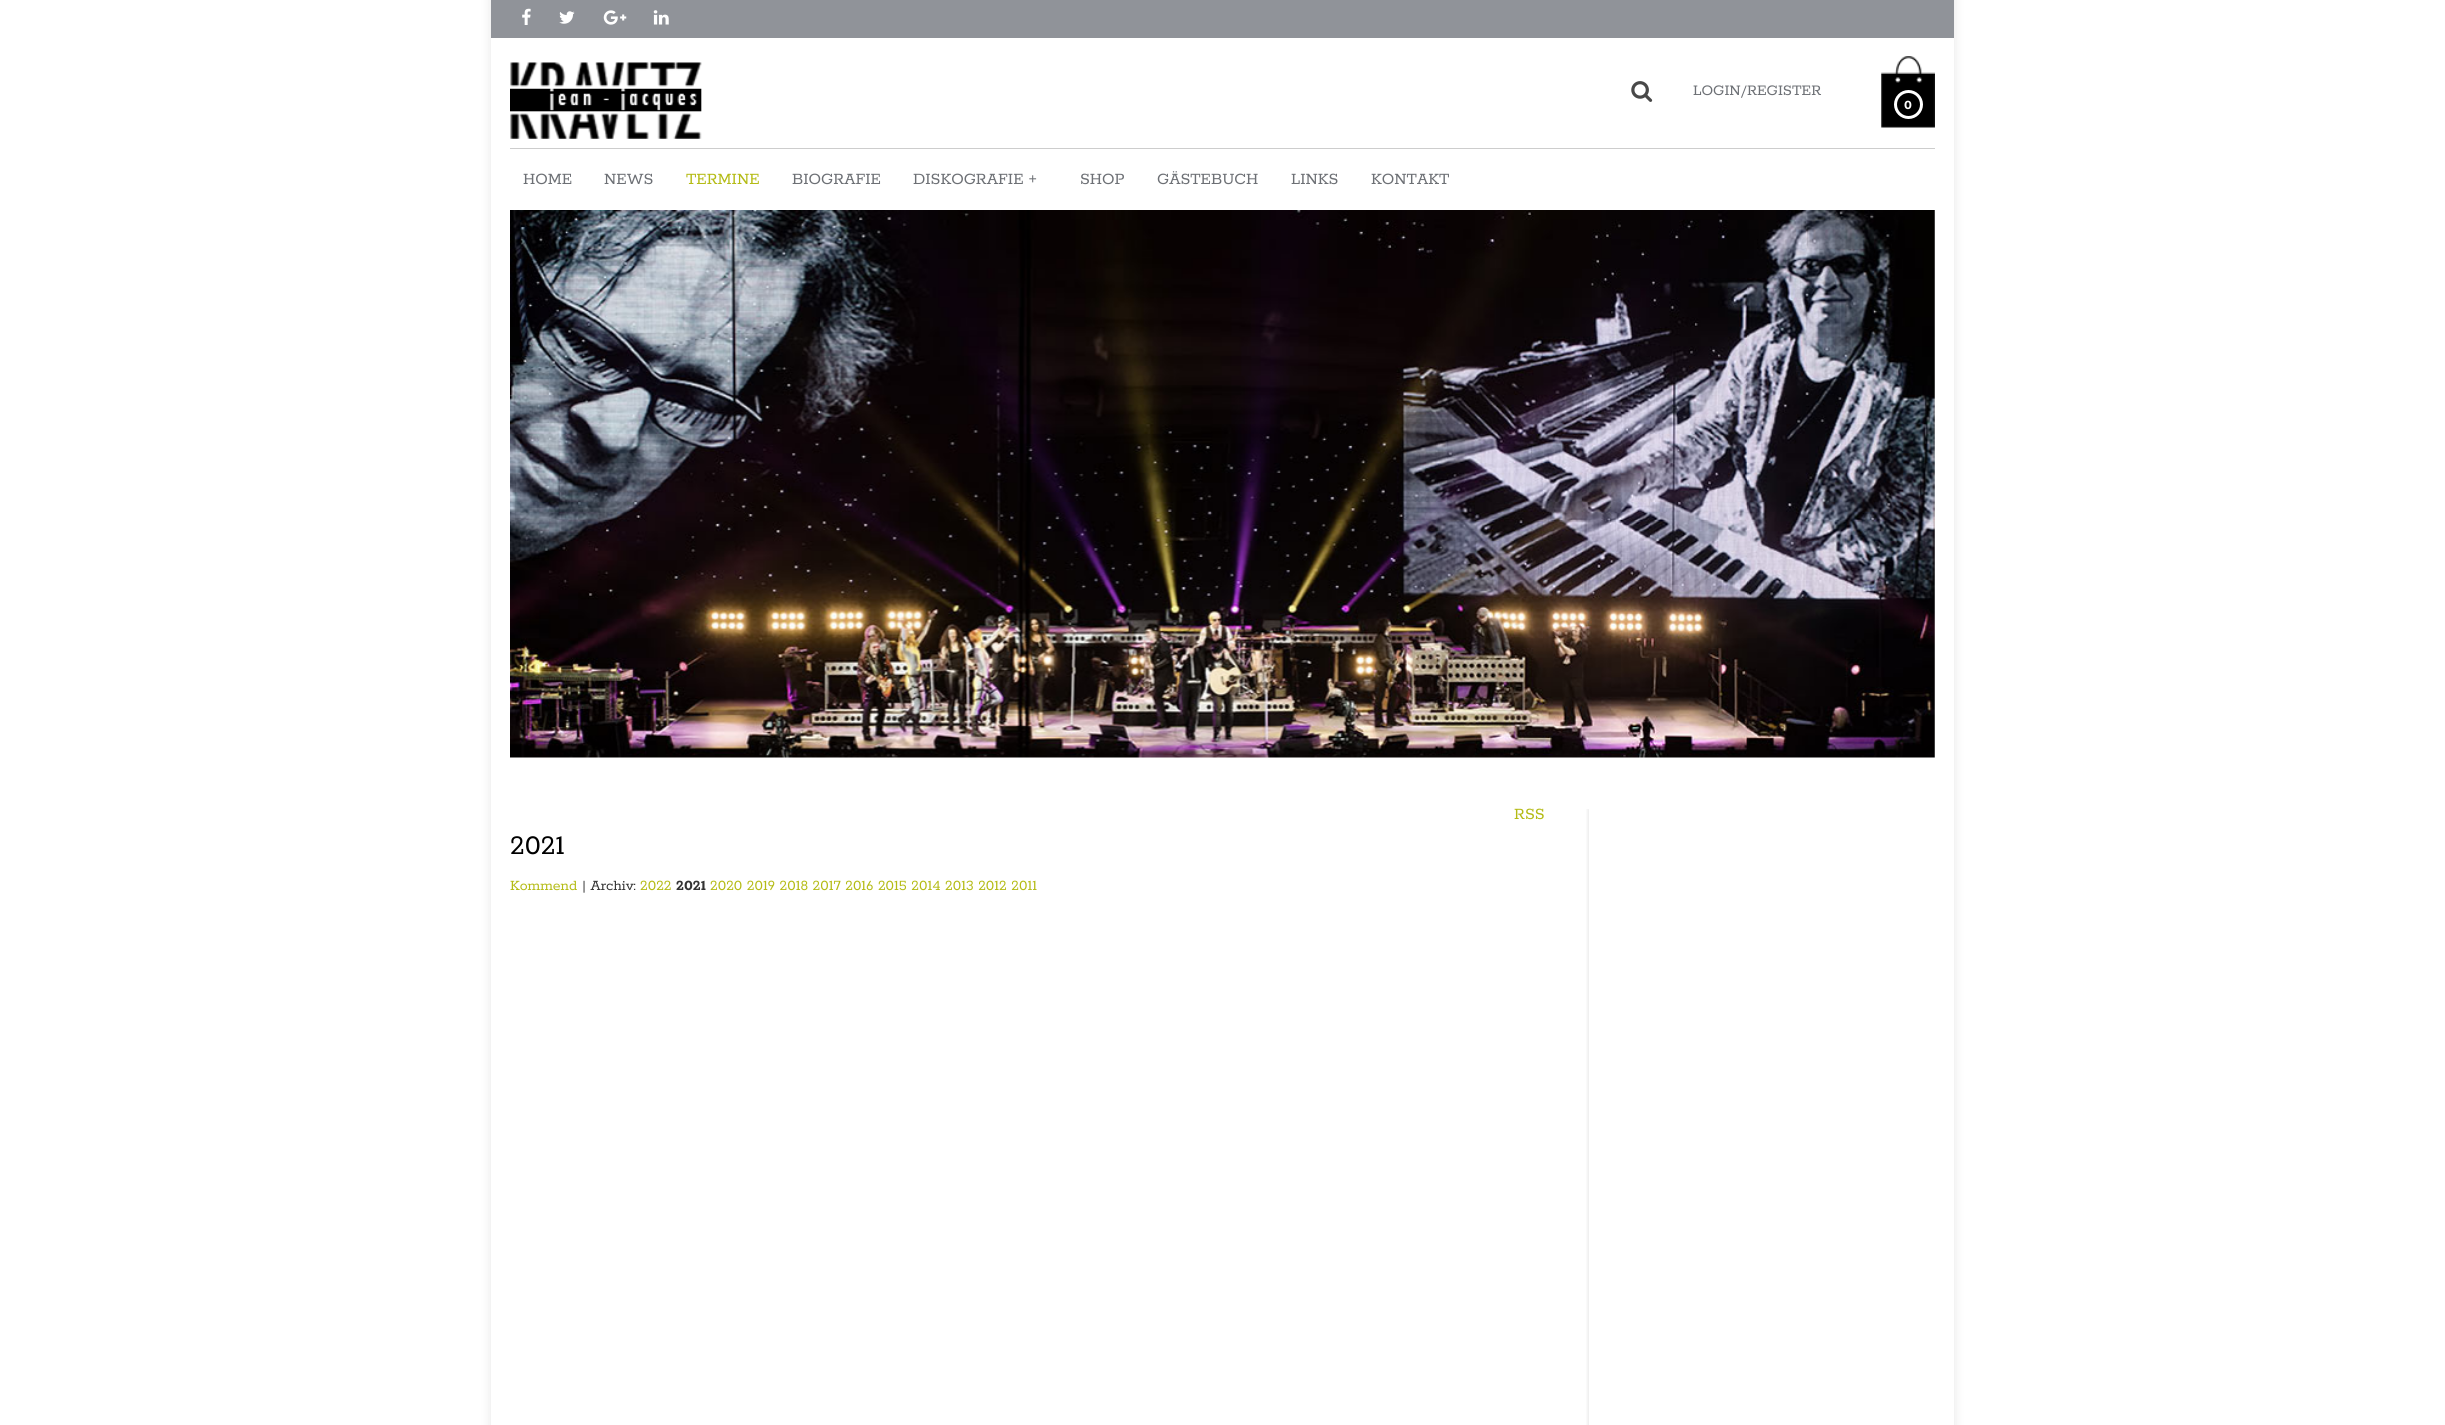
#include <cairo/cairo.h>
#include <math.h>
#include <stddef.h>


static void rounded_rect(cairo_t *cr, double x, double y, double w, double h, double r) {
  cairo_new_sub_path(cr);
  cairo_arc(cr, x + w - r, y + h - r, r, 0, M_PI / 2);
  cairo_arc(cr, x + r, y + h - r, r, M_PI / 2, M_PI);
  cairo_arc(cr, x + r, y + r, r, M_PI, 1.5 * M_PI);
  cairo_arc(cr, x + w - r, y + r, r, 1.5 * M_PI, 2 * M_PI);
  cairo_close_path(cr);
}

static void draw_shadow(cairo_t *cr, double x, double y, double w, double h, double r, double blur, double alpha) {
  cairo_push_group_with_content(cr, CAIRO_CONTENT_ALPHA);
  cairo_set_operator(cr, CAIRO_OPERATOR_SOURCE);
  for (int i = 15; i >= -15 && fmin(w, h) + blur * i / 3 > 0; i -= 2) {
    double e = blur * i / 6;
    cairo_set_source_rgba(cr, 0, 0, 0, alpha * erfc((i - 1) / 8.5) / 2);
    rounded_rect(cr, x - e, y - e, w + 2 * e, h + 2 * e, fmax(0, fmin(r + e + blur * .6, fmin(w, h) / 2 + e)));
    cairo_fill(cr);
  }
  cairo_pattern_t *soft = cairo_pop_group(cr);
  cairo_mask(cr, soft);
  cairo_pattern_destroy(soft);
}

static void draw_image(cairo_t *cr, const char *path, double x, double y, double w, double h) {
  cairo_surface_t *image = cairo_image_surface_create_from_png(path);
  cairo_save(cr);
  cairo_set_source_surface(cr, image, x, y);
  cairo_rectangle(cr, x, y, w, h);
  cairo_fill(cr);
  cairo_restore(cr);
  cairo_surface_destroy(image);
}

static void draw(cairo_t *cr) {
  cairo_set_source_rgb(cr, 1, 1, 1);
  cairo_paint(cr);
  cairo_set_source_rgb(cr, 0, 0, 0);
  draw_shadow(cr, 491, -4, 1463, 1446, 0, 5.5, 0.1);
  cairo_set_source_rgb(cr, 1, 1, 1);
  cairo_rectangle(cr, 491, 38, 1463, 1387);
  cairo_fill(cr);
  cairo_set_source_rgb(cr, 144 / 255.0, 147 / 255.0, 153 / 255.0);
  cairo_rectangle(cr, 491, 0, 1463, 38);
  cairo_fill(cr);
  draw_image(cr, "images/1.png", 522, 8, 9, 17);
  draw_image(cr, "images/2.png", 559, 11, 16, 13);
  draw_image(cr, "images/3.png", 603, 10, 24, 15);
  draw_image(cr, "images/4.png", 653, 10, 16, 15);
  draw_image(cr, "images/5.png", 510, 62, 192, 77);
  draw_image(cr, "images/6.png", 1631, 81, 22, 21);
  draw_image(cr, "images/7.png", 1881, 56, 54, 72);
  cairo_arc(cr, 1908.5, 104.5, 13, 0, 2 * M_PI);
  cairo_set_source_rgb(cr, 1, 1, 1);
  cairo_set_line_width(cr, 3);
  cairo_stroke(cr);
  cairo_set_source_rgb(cr, 205 / 255.0, 205 / 255.0, 205 / 255.0);
  cairo_rectangle(cr, 510, 148, 1425, 1);
  cairo_fill(cr);
  draw_image(cr, "images/8.png", 510, 210, 1425, 548);
  cairo_save(cr);
  cairo_rectangle(cr, 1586, 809, 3, 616);
  cairo_clip(cr);
  cairo_set_source_rgb(cr, 0, 0, 0);
  draw_shadow(cr, 1588, 809, 357, 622, 0, 2, 0.1);
  cairo_restore(cr);
  cairo_select_font_face(cr, "Rokkitt", CAIRO_FONT_SLANT_NORMAL, CAIRO_FONT_WEIGHT_NORMAL);
  cairo_set_font_size(cr, 16.25);
  cairo_set_source_rgb(cr, 109 / 255.0, 112 / 255.0, 117 / 255.0);
  cairo_move_to(cr, 1693, 95);
  cairo_show_text(cr, "LOGIN/REGISTER");
  cairo_select_font_face(cr, "Rokkitt", CAIRO_FONT_SLANT_NORMAL, CAIRO_FONT_WEIGHT_BOLD);
  cairo_set_font_size(cr, 14);
  cairo_set_source_rgb(cr, 1, 1, 1);
  cairo_move_to(cr, 1904, 109);
  cairo_show_text(cr, "0");
  cairo_select_font_face(cr, "Rokkitt", CAIRO_FONT_SLANT_NORMAL, CAIRO_FONT_WEIGHT_NORMAL);
  cairo_set_font_size(cr, 17.5);
  cairo_set_source_rgb(cr, 109 / 255.0, 112 / 255.0, 117 / 255.0);
  cairo_move_to(cr, 523, 184);
  cairo_show_text(cr, "HOME");
  cairo_move_to(cr, 604, 184);
  cairo_show_text(cr, "NEWS");
  cairo_set_source_rgb(cr, 180 / 255.0, 187 / 255.0, 21 / 255.0);
  cairo_move_to(cr, 686, 184);
  cairo_show_text(cr, "TERMINE");
  cairo_set_source_rgb(cr, 109 / 255.0, 112 / 255.0, 117 / 255.0);
  cairo_move_to(cr, 792, 184);
  cairo_show_text(cr, "BIOGRAFIE");
  cairo_move_to(cr, 913, 184);
  cairo_show_text(cr, "DISKOGRAFIE +");
  cairo_move_to(cr, 1080, 184);
  cairo_show_text(cr, "SHOP");
  cairo_move_to(cr, 1157, 184);
  cairo_show_text(cr, "GÄSTEBUCH");
  cairo_move_to(cr, 1291, 184);
  cairo_show_text(cr, "LINKS");
  cairo_move_to(cr, 1371, 184);
  cairo_show_text(cr, "KONTAKT");
  cairo_set_source_rgb(cr, 180 / 255.0, 187 / 255.0, 21 / 255.0);
  cairo_move_to(cr, 1514, 819);
  cairo_show_text(cr, "RSS");
  cairo_set_font_size(cr, 30);
  cairo_set_source_rgb(cr, 0, 0, 0);
  cairo_move_to(cr, 510, 854);
  cairo_show_text(cr, "2021");
  cairo_set_font_size(cr, 15.75);
  cairo_set_source_rgb(cr, 180 / 255.0, 187 / 255.0, 21 / 255.0);
  cairo_move_to(cr, 510, 890);
  cairo_show_text(cr, "Kommend");
  cairo_set_source_rgb(cr, 51 / 255.0, 51 / 255.0, 51 / 255.0);
  cairo_move_to(cr, 582, 890);
  cairo_show_text(cr, "| Archiv:");
  cairo_set_source_rgb(cr, 180 / 255.0, 187 / 255.0, 21 / 255.0);
  cairo_move_to(cr, 640, 890);
  cairo_show_text(cr, "2022");
  cairo_select_font_face(cr, "Rokkitt", CAIRO_FONT_SLANT_NORMAL, CAIRO_FONT_WEIGHT_BOLD);
  cairo_set_source_rgb(cr, 51 / 255.0, 51 / 255.0, 51 / 255.0);
  cairo_move_to(cr, 676, 890);
  cairo_show_text(cr, "2021");
  cairo_select_font_face(cr, "Rokkitt", CAIRO_FONT_SLANT_NORMAL, CAIRO_FONT_WEIGHT_NORMAL);
  cairo_set_source_rgb(cr, 180 / 255.0, 187 / 255.0, 21 / 255.0);
  cairo_move_to(cr, 710, 890);
  cairo_show_text(cr, "2020 2019 2018 2017 2016 2015 2014 2013 2012 2011");
}

int main(void) {
  cairo_surface_t *surface = cairo_image_surface_create(CAIRO_FORMAT_RGB24, 2445, 1425);
  cairo_t *cr = cairo_create(surface);
  cairo_font_options_t *options = cairo_font_options_create();
  cairo_font_options_set_hint_metrics(options, CAIRO_HINT_METRICS_OFF);
  cairo_font_options_set_hint_style(options, CAIRO_HINT_STYLE_NONE);
  cairo_set_font_options(cr, options);
  cairo_set_miter_limit(cr, 4);
  draw(cr);
  cairo_surface_write_to_png(surface, "out.png");
  cairo_font_options_destroy(options);
  cairo_destroy(cr);
  cairo_surface_destroy(surface);
  return 0;
}
